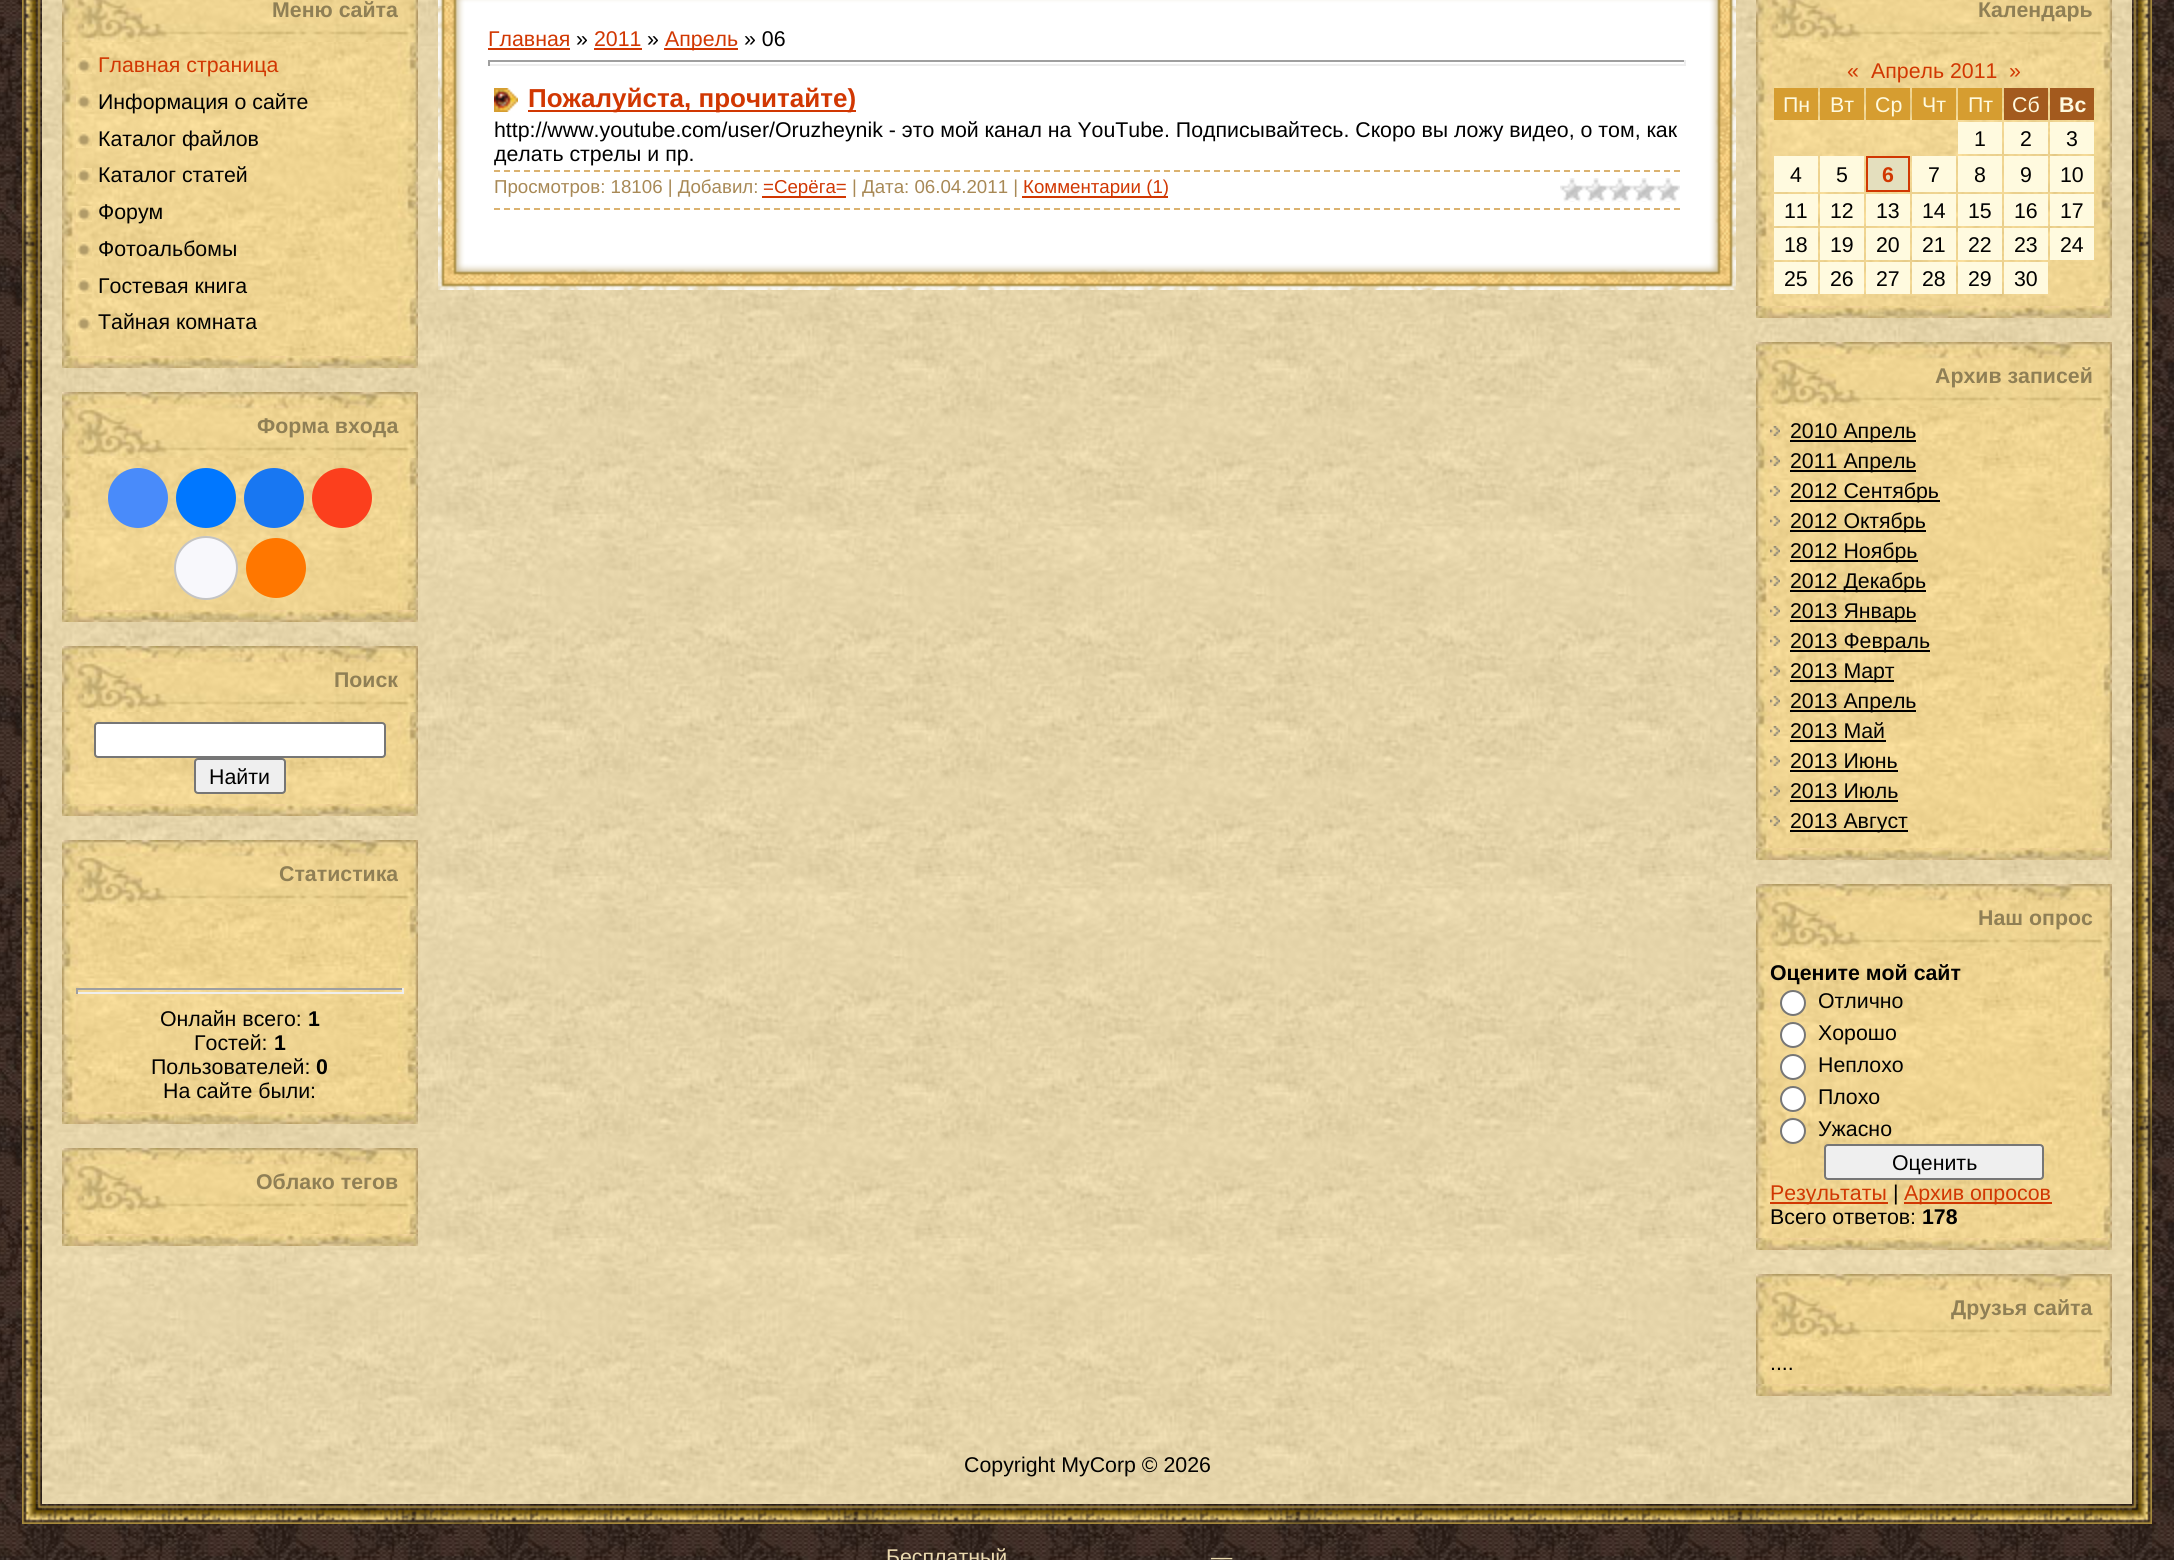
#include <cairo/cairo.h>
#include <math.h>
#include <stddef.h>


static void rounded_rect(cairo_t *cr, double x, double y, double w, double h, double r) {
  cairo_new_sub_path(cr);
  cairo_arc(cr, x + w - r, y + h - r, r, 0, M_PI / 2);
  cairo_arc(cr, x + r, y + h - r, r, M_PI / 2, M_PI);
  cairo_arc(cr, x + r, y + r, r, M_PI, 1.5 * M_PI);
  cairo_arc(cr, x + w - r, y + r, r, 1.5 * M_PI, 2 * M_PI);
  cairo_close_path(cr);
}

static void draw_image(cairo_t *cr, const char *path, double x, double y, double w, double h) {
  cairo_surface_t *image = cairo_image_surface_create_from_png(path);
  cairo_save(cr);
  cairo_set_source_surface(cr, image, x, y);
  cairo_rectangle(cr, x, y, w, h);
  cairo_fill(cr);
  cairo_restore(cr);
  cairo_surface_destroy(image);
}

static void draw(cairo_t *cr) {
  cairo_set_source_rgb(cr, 1, 1, 1);
  cairo_paint(cr);
  draw_image(cr, "images/1.png", 0, 0, 2174, 1560);
  draw_image(cr, "images/2.png", 22, 0, 20, 1504);
  draw_image(cr, "images/3.png", 42, 0, 2090, 1504);
  draw_image(cr, "images/4.png", 62, 0, 356, 42);
  draw_image(cr, "images/5.png", 62, 42, 356, 314);
  draw_image(cr, "images/6.png", 76, 58, 16, 16);
  draw_image(cr, "images/6.png", 76, 94, 16, 16);
  draw_image(cr, "images/6.png", 76, 132, 16, 16);
  draw_image(cr, "images/6.png", 76, 168, 16, 16);
  draw_image(cr, "images/6.png", 76, 206, 16, 16);
  draw_image(cr, "images/6.png", 76, 242, 16, 16);
  draw_image(cr, "images/6.png", 76, 278, 16, 16);
  draw_image(cr, "images/6.png", 76, 316, 16, 16);
  draw_image(cr, "images/7.png", 62, 356, 356, 12);
  draw_image(cr, "images/8.png", 62, 392, 356, 66);
  draw_image(cr, "images/9.png", 62, 458, 356, 152);
  cairo_set_source_rgb(cr, 73 / 255.0, 139 / 255.0, 250 / 255.0);
  cairo_arc(cr, 138, 498, 30, 0, 2 * M_PI);
  cairo_fill(cr);
  cairo_set_source_rgb(cr, 0, 119 / 255.0, 1);
  cairo_arc(cr, 206, 498, 30, 0, 2 * M_PI);
  cairo_fill(cr);
  cairo_set_source_rgb(cr, 24 / 255.0, 119 / 255.0, 242 / 255.0);
  cairo_arc(cr, 274, 498, 30, 0, 2 * M_PI);
  cairo_fill(cr);
  cairo_set_source_rgb(cr, 252 / 255.0, 63 / 255.0, 29 / 255.0);
  cairo_arc(cr, 342, 498, 30, 0, 2 * M_PI);
  cairo_fill(cr);
  cairo_set_source_rgb(cr, 248 / 255.0, 248 / 255.0, 252 / 255.0);
  cairo_arc(cr, 206, 568, 31, 0, 2 * M_PI);
  cairo_fill_preserve(cr);
  cairo_set_source_rgb(cr, 196 / 255.0, 196 / 255.0, 196 / 255.0);
  cairo_stroke(cr);
  cairo_set_source_rgb(cr, 1, 119 / 255.0, 0);
  cairo_arc(cr, 276, 568, 30, 0, 2 * M_PI);
  cairo_fill(cr);
  draw_image(cr, "images/7.png", 62, 610, 356, 12);
  draw_image(cr, "images/8.png", 62, 646, 356, 66);
  draw_image(cr, "images/10.png", 62, 712, 356, 92);
  cairo_set_source_rgb(cr, 1, 1, 1);
  rounded_rect(cr, 95, 723, 290, 34, 3);
  cairo_fill_preserve(cr);
  cairo_set_source_rgb(cr, 118 / 255.0, 118 / 255.0, 118 / 255.0);
  cairo_stroke(cr);
  cairo_set_source_rgb(cr, 239 / 255.0, 239 / 255.0, 239 / 255.0);
  rounded_rect(cr, 195, 759, 90, 34, 3);
  cairo_fill_preserve(cr);
  cairo_set_source_rgb(cr, 118 / 255.0, 118 / 255.0, 118 / 255.0);
  cairo_stroke(cr);
  draw_image(cr, "images/7.png", 62, 804, 356, 12);
  draw_image(cr, "images/8.png", 62, 840, 356, 66);
  draw_image(cr, "images/11.png", 62, 906, 356, 206);
  cairo_set_source_rgb(cr, 159 / 255.0, 159 / 255.0, 159 / 255.0);
  cairo_rectangle(cr, 76, 988, 328, 2);
  cairo_fill(cr);
  cairo_set_source_rgb(cr, 238 / 255.0, 238 / 255.0, 238 / 255.0);
  cairo_rectangle(cr, 402, 988, 2, 6);
  cairo_fill(cr);
  cairo_rectangle(cr, 76, 992, 328, 2);
  cairo_fill(cr);
  cairo_set_source_rgb(cr, 159 / 255.0, 159 / 255.0, 159 / 255.0);
  cairo_rectangle(cr, 76, 988, 2, 6);
  cairo_fill(cr);
  draw_image(cr, "images/7.png", 62, 1112, 356, 12);
  draw_image(cr, "images/8.png", 62, 1148, 356, 66);
  draw_image(cr, "images/12.png", 62, 1214, 356, 20);
  draw_image(cr, "images/7.png", 62, 1234, 356, 12);
  draw_image(cr, "images/13.png", 438, 0, 30, 6);
  draw_image(cr, "images/14.png", 468, 0, 1238, 6);
  draw_image(cr, "images/15.png", 1706, 0, 30, 6);
  draw_image(cr, "images/16.png", 438, 6, 30, 254);
  cairo_set_source_rgb(cr, 1, 1, 1);
  cairo_rectangle(cr, 468, 6, 1238, 254);
  cairo_fill(cr);
  cairo_set_source_rgb(cr, 209 / 255.0, 55 / 255.0, 2 / 255.0);
  cairo_rectangle(cr, 488, 48, 82, 2);
  cairo_fill(cr);
  cairo_rectangle(cr, 594, 48, 48, 2);
  cairo_fill(cr);
  cairo_rectangle(cr, 664, 48, 74, 2);
  cairo_fill(cr);
  cairo_set_source_rgb(cr, 159 / 255.0, 159 / 255.0, 159 / 255.0);
  cairo_rectangle(cr, 488, 60, 1198, 2);
  cairo_fill(cr);
  cairo_set_source_rgb(cr, 238 / 255.0, 238 / 255.0, 238 / 255.0);
  cairo_rectangle(cr, 1684, 60, 2, 6);
  cairo_fill(cr);
  cairo_rectangle(cr, 488, 64, 1198, 2);
  cairo_fill(cr);
  cairo_set_source_rgb(cr, 159 / 255.0, 159 / 255.0, 159 / 255.0);
  cairo_rectangle(cr, 488, 60, 2, 6);
  cairo_fill(cr);
  draw_image(cr, "images/17.png", 494, 88, 24, 24);
  cairo_set_source_rgb(cr, 209 / 255.0, 55 / 255.0, 2 / 255.0);
  cairo_rectangle(cr, 528, 110, 328, 2);
  cairo_fill(cr);
  cairo_new_path(cr);
  cairo_move_to(cr, 494, 171);
  cairo_line_to(cr, 1680, 171);
  cairo_set_source_rgb(cr, 219 / 255.0, 178 / 255.0, 112 / 255.0);
  cairo_set_dash(cr, (double[]){6, 4}, 2, 0);
  cairo_stroke(cr);
  cairo_new_path(cr);
  cairo_move_to(cr, 494, 209);
  cairo_line_to(cr, 1680, 209);
  cairo_stroke(cr);
  cairo_set_source_rgb(cr, 209 / 255.0, 55 / 255.0, 2 / 255.0);
  cairo_rectangle(cr, 762, 196, 84, 2);
  cairo_fill(cr);
  cairo_rectangle(cr, 1022, 196, 146, 2);
  cairo_fill(cr);
  draw_image(cr, "images/18.png", 1560, 178, 120, 24);
  draw_image(cr, "images/19.png", 1706, 6, 30, 254);
  draw_image(cr, "images/20.png", 438, 260, 30, 30);
  draw_image(cr, "images/21.png", 468, 260, 1238, 30);
  draw_image(cr, "images/22.png", 1706, 260, 30, 30);
  draw_image(cr, "images/4.png", 1756, 0, 356, 42);
  draw_image(cr, "images/23.png", 1756, 42, 356, 264);
  cairo_set_source_rgb(cr, 214 / 255.0, 157 / 255.0, 48 / 255.0);
  cairo_rectangle(cr, 1774, 88, 44, 32);
  cairo_fill(cr);
  cairo_rectangle(cr, 1820, 88, 44, 32);
  cairo_fill(cr);
  cairo_rectangle(cr, 1866, 88, 44, 32);
  cairo_fill(cr);
  cairo_rectangle(cr, 1912, 88, 44, 32);
  cairo_fill(cr);
  cairo_rectangle(cr, 1958, 88, 44, 32);
  cairo_fill(cr);
  cairo_set_source_rgb(cr, 163 / 255.0, 90 / 255.0, 30 / 255.0);
  cairo_rectangle(cr, 2004, 88, 44, 32);
  cairo_fill(cr);
  cairo_rectangle(cr, 2050, 88, 44, 32);
  cairo_fill(cr);
  cairo_set_source_rgb(cr, 1, 250 / 255.0, 223 / 255.0);
  cairo_rectangle(cr, 1958, 122, 44, 32);
  cairo_fill(cr);
  cairo_rectangle(cr, 2004, 122, 44, 32);
  cairo_fill(cr);
  cairo_rectangle(cr, 2050, 122, 44, 32);
  cairo_fill(cr);
  cairo_rectangle(cr, 1774, 156, 44, 36);
  cairo_fill(cr);
  cairo_rectangle(cr, 1820, 156, 44, 36);
  cairo_fill(cr);
  cairo_set_source_rgb(cr, 228 / 255.0, 223 / 255.0, 190 / 255.0);
  cairo_rectangle(cr, 1867, 157, 42, 34);
  cairo_fill_preserve(cr);
  cairo_set_source_rgb(cr, 209 / 255.0, 55 / 255.0, 2 / 255.0);
  cairo_set_dash(cr, NULL, 0, 0);
  cairo_stroke(cr);
  cairo_set_source_rgb(cr, 1, 250 / 255.0, 223 / 255.0);
  cairo_rectangle(cr, 1912, 156, 44, 36);
  cairo_fill(cr);
  cairo_rectangle(cr, 1958, 156, 44, 36);
  cairo_fill(cr);
  cairo_rectangle(cr, 2004, 156, 44, 36);
  cairo_fill(cr);
  cairo_rectangle(cr, 2050, 156, 44, 36);
  cairo_fill(cr);
  cairo_rectangle(cr, 1774, 194, 44, 32);
  cairo_fill(cr);
  cairo_rectangle(cr, 1820, 194, 44, 32);
  cairo_fill(cr);
  cairo_rectangle(cr, 1866, 194, 44, 32);
  cairo_fill(cr);
  cairo_rectangle(cr, 1912, 194, 44, 32);
  cairo_fill(cr);
  cairo_rectangle(cr, 1958, 194, 44, 32);
  cairo_fill(cr);
  cairo_rectangle(cr, 2004, 194, 44, 32);
  cairo_fill(cr);
  cairo_rectangle(cr, 2050, 194, 44, 32);
  cairo_fill(cr);
  cairo_rectangle(cr, 1774, 228, 44, 32);
  cairo_fill(cr);
  cairo_rectangle(cr, 1820, 228, 44, 32);
  cairo_fill(cr);
  cairo_rectangle(cr, 1866, 228, 44, 32);
  cairo_fill(cr);
  cairo_rectangle(cr, 1912, 228, 44, 32);
  cairo_fill(cr);
  cairo_rectangle(cr, 1958, 228, 44, 32);
  cairo_fill(cr);
  cairo_rectangle(cr, 2004, 228, 44, 32);
  cairo_fill(cr);
  cairo_rectangle(cr, 2050, 228, 44, 32);
  cairo_fill(cr);
  cairo_rectangle(cr, 1774, 262, 44, 32);
  cairo_fill(cr);
  cairo_rectangle(cr, 1820, 262, 44, 32);
  cairo_fill(cr);
  cairo_rectangle(cr, 1866, 262, 44, 32);
  cairo_fill(cr);
  cairo_rectangle(cr, 1912, 262, 44, 32);
  cairo_fill(cr);
  cairo_rectangle(cr, 1958, 262, 44, 32);
  cairo_fill(cr);
  cairo_rectangle(cr, 2004, 262, 44, 32);
  cairo_fill(cr);
  draw_image(cr, "images/7.png", 1756, 306, 356, 12);
  draw_image(cr, "images/8.png", 1756, 342, 356, 66);
  draw_image(cr, "images/24.png", 1756, 408, 356, 440);
  draw_image(cr, "images/25.png", 1770, 426, 10, 10);
  cairo_set_source_rgb(cr, 0, 0, 0);
  cairo_rectangle(cr, 1790, 440, 126, 2);
  cairo_fill(cr);
  draw_image(cr, "images/26.png", 1770, 456, 10, 10);
  cairo_rectangle(cr, 1790, 470, 126, 2);
  cairo_fill(cr);
  draw_image(cr, "images/27.png", 1770, 486, 10, 10);
  cairo_rectangle(cr, 1790, 500, 150, 2);
  cairo_fill(cr);
  draw_image(cr, "images/28.png", 1770, 516, 10, 10);
  cairo_rectangle(cr, 1790, 530, 136, 2);
  cairo_fill(cr);
  draw_image(cr, "images/29.png", 1770, 546, 10, 10);
  cairo_rectangle(cr, 1790, 560, 128, 2);
  cairo_fill(cr);
  draw_image(cr, "images/30.png", 1770, 576, 10, 10);
  cairo_rectangle(cr, 1790, 590, 136, 2);
  cairo_fill(cr);
  draw_image(cr, "images/31.png", 1770, 606, 10, 10);
  cairo_rectangle(cr, 1790, 620, 126, 2);
  cairo_fill(cr);
  draw_image(cr, "images/32.png", 1770, 636, 10, 10);
  cairo_rectangle(cr, 1790, 650, 140, 2);
  cairo_fill(cr);
  draw_image(cr, "images/33.png", 1770, 666, 10, 10);
  cairo_rectangle(cr, 1790, 680, 104, 2);
  cairo_fill(cr);
  draw_image(cr, "images/34.png", 1770, 696, 10, 10);
  cairo_rectangle(cr, 1790, 710, 126, 2);
  cairo_fill(cr);
  draw_image(cr, "images/35.png", 1770, 726, 10, 10);
  cairo_rectangle(cr, 1790, 740, 96, 2);
  cairo_fill(cr);
  draw_image(cr, "images/36.png", 1770, 756, 10, 10);
  cairo_rectangle(cr, 1790, 770, 108, 2);
  cairo_fill(cr);
  draw_image(cr, "images/37.png", 1770, 786, 10, 10);
  cairo_rectangle(cr, 1790, 800, 108, 2);
  cairo_fill(cr);
  draw_image(cr, "images/38.png", 1770, 816, 10, 10);
  cairo_rectangle(cr, 1790, 830, 118, 2);
  cairo_fill(cr);
  draw_image(cr, "images/7.png", 1756, 848, 356, 12);
  draw_image(cr, "images/8.png", 1756, 884, 356, 66);
  draw_image(cr, "images/39.png", 1756, 950, 356, 288);
  cairo_set_source_rgb(cr, 1, 1, 1);
  cairo_arc(cr, 1793, 1003, 12, 0, 2 * M_PI);
  cairo_fill_preserve(cr);
  cairo_set_source_rgb(cr, 118 / 255.0, 118 / 255.0, 118 / 255.0);
  cairo_stroke(cr);
  cairo_set_source_rgb(cr, 1, 1, 1);
  cairo_arc(cr, 1793, 1035, 12, 0, 2 * M_PI);
  cairo_fill_preserve(cr);
  cairo_set_source_rgb(cr, 118 / 255.0, 118 / 255.0, 118 / 255.0);
  cairo_stroke(cr);
  cairo_set_source_rgb(cr, 1, 1, 1);
  cairo_arc(cr, 1793, 1067, 12, 0, 2 * M_PI);
  cairo_fill_preserve(cr);
  cairo_set_source_rgb(cr, 118 / 255.0, 118 / 255.0, 118 / 255.0);
  cairo_stroke(cr);
  cairo_set_source_rgb(cr, 1, 1, 1);
  cairo_arc(cr, 1793, 1099, 12, 0, 2 * M_PI);
  cairo_fill_preserve(cr);
  cairo_set_source_rgb(cr, 118 / 255.0, 118 / 255.0, 118 / 255.0);
  cairo_stroke(cr);
  cairo_set_source_rgb(cr, 1, 1, 1);
  cairo_arc(cr, 1793, 1131, 12, 0, 2 * M_PI);
  cairo_fill_preserve(cr);
  cairo_set_source_rgb(cr, 118 / 255.0, 118 / 255.0, 118 / 255.0);
  cairo_stroke(cr);
  cairo_set_source_rgb(cr, 239 / 255.0, 239 / 255.0, 239 / 255.0);
  rounded_rect(cr, 1825, 1145, 218, 34, 3);
  cairo_fill_preserve(cr);
  cairo_set_source_rgb(cr, 118 / 255.0, 118 / 255.0, 118 / 255.0);
  cairo_stroke(cr);
  cairo_set_source_rgb(cr, 209 / 255.0, 55 / 255.0, 2 / 255.0);
  cairo_rectangle(cr, 1770, 1202, 118, 2);
  cairo_fill(cr);
  cairo_rectangle(cr, 1904, 1202, 148, 2);
  cairo_fill(cr);
  draw_image(cr, "images/7.png", 1756, 1238, 356, 12);
  draw_image(cr, "images/8.png", 1756, 1274, 356, 66);
  draw_image(cr, "images/40.png", 1756, 1340, 356, 44);
  draw_image(cr, "images/7.png", 1756, 1384, 356, 12);
  draw_image(cr, "images/41.png", 2132, 0, 20, 1504);
  draw_image(cr, "images/42.png", 22, 1504, 20, 20);
  draw_image(cr, "images/43.png", 42, 1504, 2090, 20);
  draw_image(cr, "images/44.png", 2132, 1504, 20, 20);
  cairo_select_font_face(cr, "Liberation Sans", CAIRO_FONT_SLANT_NORMAL, CAIRO_FONT_WEIGHT_BOLD);
  cairo_set_font_size(cr, 21.33);
  cairo_set_source_rgb(cr, 143 / 255.0, 127 / 255.0, 85 / 255.0);
  cairo_move_to(cr, 272, 17);
  cairo_show_text(cr, "Меню сайта");
  cairo_select_font_face(cr, "Liberation Sans", CAIRO_FONT_SLANT_NORMAL, CAIRO_FONT_WEIGHT_NORMAL);
  cairo_set_source_rgb(cr, 209 / 255.0, 55 / 255.0, 2 / 255.0);
  cairo_move_to(cr, 98, 72);
  cairo_show_text(cr, "Главная страница");
  cairo_set_source_rgb(cr, 0, 0, 0);
  cairo_move_to(cr, 98, 109);
  cairo_show_text(cr, "Информация о сайте");
  cairo_move_to(cr, 98, 146);
  cairo_show_text(cr, "Каталог файлов");
  cairo_move_to(cr, 98, 182);
  cairo_show_text(cr, "Каталог статей");
  cairo_move_to(cr, 98, 219);
  cairo_show_text(cr, "Форум");
  cairo_move_to(cr, 98, 256);
  cairo_show_text(cr, "Фотоальбомы");
  cairo_move_to(cr, 98, 293);
  cairo_show_text(cr, "Гостевая книга");
  cairo_move_to(cr, 98, 329);
  cairo_show_text(cr, "Тайная комната");
  cairo_select_font_face(cr, "Liberation Sans", CAIRO_FONT_SLANT_NORMAL, CAIRO_FONT_WEIGHT_BOLD);
  cairo_set_source_rgb(cr, 143 / 255.0, 127 / 255.0, 85 / 255.0);
  cairo_move_to(cr, 257, 433);
  cairo_show_text(cr, "Форма входа");
  cairo_move_to(cr, 334, 687);
  cairo_show_text(cr, "Поиск");
  cairo_select_font_face(cr, "Liberation Sans", CAIRO_FONT_SLANT_NORMAL, CAIRO_FONT_WEIGHT_NORMAL);
  cairo_set_source_rgb(cr, 0, 0, 0);
  cairo_move_to(cr, 209, 784);
  cairo_show_text(cr, "Найти");
  cairo_select_font_face(cr, "Liberation Sans", CAIRO_FONT_SLANT_NORMAL, CAIRO_FONT_WEIGHT_BOLD);
  cairo_set_source_rgb(cr, 143 / 255.0, 127 / 255.0, 85 / 255.0);
  cairo_move_to(cr, 279, 881);
  cairo_show_text(cr, "Статистика");
  cairo_select_font_face(cr, "Liberation Sans", CAIRO_FONT_SLANT_NORMAL, CAIRO_FONT_WEIGHT_NORMAL);
  cairo_set_source_rgb(cr, 0, 0, 0);
  cairo_move_to(cr, 160, 1026);
  cairo_show_text(cr, "Онлайн всего:");
  cairo_select_font_face(cr, "Liberation Sans", CAIRO_FONT_SLANT_NORMAL, CAIRO_FONT_WEIGHT_BOLD);
  cairo_move_to(cr, 308, 1026);
  cairo_show_text(cr, "1");
  cairo_select_font_face(cr, "Liberation Sans", CAIRO_FONT_SLANT_NORMAL, CAIRO_FONT_WEIGHT_NORMAL);
  cairo_move_to(cr, 194, 1050);
  cairo_show_text(cr, "Гостей:");
  cairo_select_font_face(cr, "Liberation Sans", CAIRO_FONT_SLANT_NORMAL, CAIRO_FONT_WEIGHT_BOLD);
  cairo_move_to(cr, 274, 1050);
  cairo_show_text(cr, "1");
  cairo_select_font_face(cr, "Liberation Sans", CAIRO_FONT_SLANT_NORMAL, CAIRO_FONT_WEIGHT_NORMAL);
  cairo_move_to(cr, 151, 1074);
  cairo_show_text(cr, "Пользователей:");
  cairo_select_font_face(cr, "Liberation Sans", CAIRO_FONT_SLANT_NORMAL, CAIRO_FONT_WEIGHT_BOLD);
  cairo_move_to(cr, 316, 1074);
  cairo_show_text(cr, "0");
  cairo_select_font_face(cr, "Liberation Sans", CAIRO_FONT_SLANT_NORMAL, CAIRO_FONT_WEIGHT_NORMAL);
  cairo_move_to(cr, 163, 1098);
  cairo_show_text(cr, "На сайте были:");
  cairo_select_font_face(cr, "Liberation Sans", CAIRO_FONT_SLANT_NORMAL, CAIRO_FONT_WEIGHT_BOLD);
  cairo_set_source_rgb(cr, 143 / 255.0, 127 / 255.0, 85 / 255.0);
  cairo_move_to(cr, 256, 1189);
  cairo_show_text(cr, "Облако тегов");
  cairo_select_font_face(cr, "Liberation Sans", CAIRO_FONT_SLANT_NORMAL, CAIRO_FONT_WEIGHT_NORMAL);
  cairo_set_source_rgb(cr, 209 / 255.0, 55 / 255.0, 2 / 255.0);
  cairo_move_to(cr, 488, 46);
  cairo_show_text(cr, "Главная");
  cairo_set_source_rgb(cr, 0, 0, 0);
  cairo_move_to(cr, 576, 46);
  cairo_show_text(cr, "»");
  cairo_set_source_rgb(cr, 209 / 255.0, 55 / 255.0, 2 / 255.0);
  cairo_move_to(cr, 594, 46);
  cairo_show_text(cr, "2011");
  cairo_set_source_rgb(cr, 0, 0, 0);
  cairo_move_to(cr, 647, 46);
  cairo_show_text(cr, "»");
  cairo_set_source_rgb(cr, 209 / 255.0, 55 / 255.0, 2 / 255.0);
  cairo_move_to(cr, 665, 46);
  cairo_show_text(cr, "Апрель");
  cairo_set_source_rgb(cr, 0, 0, 0);
  cairo_move_to(cr, 744, 46);
  cairo_show_text(cr, "» 06");
  cairo_select_font_face(cr, "Liberation Sans", CAIRO_FONT_SLANT_NORMAL, CAIRO_FONT_WEIGHT_BOLD);
  cairo_set_font_size(cr, 26);
  cairo_set_source_rgb(cr, 209 / 255.0, 55 / 255.0, 2 / 255.0);
  cairo_move_to(cr, 528, 107);
  cairo_show_text(cr, "Пожалуйста, прочитайте)");
  cairo_select_font_face(cr, "Liberation Sans", CAIRO_FONT_SLANT_NORMAL, CAIRO_FONT_WEIGHT_NORMAL);
  cairo_set_font_size(cr, 21.33);
  cairo_set_source_rgb(cr, 0, 0, 0);
  cairo_move_to(cr, 494, 137);
  cairo_show_text(cr, "http://www.youtube.com/user/Oruzheynik - это мой канал на YouTube. Подписывайтесь. Скоро вы ложу видео, о том, как");
  cairo_move_to(cr, 494, 161);
  cairo_show_text(cr, "делать стрелы и пр.");
  cairo_set_font_size(cr, 18.7);
  cairo_set_source_rgb(cr, 168 / 255.0, 137 / 255.0, 86 / 255.0);
  cairo_move_to(cr, 494, 193);
  cairo_show_text(cr, "Просмотров: 18106 | Добавил:");
  cairo_set_source_rgb(cr, 209 / 255.0, 55 / 255.0, 2 / 255.0);
  cairo_move_to(cr, 763, 193);
  cairo_show_text(cr, "=Серёга=");
  cairo_set_source_rgb(cr, 168 / 255.0, 137 / 255.0, 86 / 255.0);
  cairo_move_to(cr, 852, 193);
  cairo_show_text(cr, "| Дата: 06.04.2011 |");
  cairo_set_source_rgb(cr, 209 / 255.0, 55 / 255.0, 2 / 255.0);
  cairo_move_to(cr, 1023, 193);
  cairo_show_text(cr, "Комментарии (1)");
  cairo_select_font_face(cr, "Liberation Sans", CAIRO_FONT_SLANT_NORMAL, CAIRO_FONT_WEIGHT_BOLD);
  cairo_set_font_size(cr, 21.33);
  cairo_set_source_rgb(cr, 143 / 255.0, 127 / 255.0, 85 / 255.0);
  cairo_move_to(cr, 1978, 17);
  cairo_show_text(cr, "Календарь");
  cairo_select_font_face(cr, "Liberation Sans", CAIRO_FONT_SLANT_NORMAL, CAIRO_FONT_WEIGHT_NORMAL);
  cairo_set_source_rgb(cr, 209 / 255.0, 55 / 255.0, 2 / 255.0);
  cairo_move_to(cr, 1847, 78);
  cairo_show_text(cr, "«");
  cairo_move_to(cr, 1871, 78);
  cairo_show_text(cr, "Апрель 2011");
  cairo_move_to(cr, 2009, 78);
  cairo_show_text(cr, "»");
  cairo_set_source_rgb(cr, 1, 250 / 255.0, 223 / 255.0);
  cairo_move_to(cr, 1783, 112);
  cairo_show_text(cr, "Пн");
  cairo_move_to(cr, 1830, 112);
  cairo_show_text(cr, "Вт");
  cairo_move_to(cr, 1875, 112);
  cairo_show_text(cr, "Ср");
  cairo_move_to(cr, 1922, 112);
  cairo_show_text(cr, "Чт");
  cairo_move_to(cr, 1968, 112);
  cairo_show_text(cr, "Пт");
  cairo_move_to(cr, 2012, 112);
  cairo_show_text(cr, "Сб");
  cairo_select_font_face(cr, "Liberation Sans", CAIRO_FONT_SLANT_NORMAL, CAIRO_FONT_WEIGHT_BOLD);
  cairo_move_to(cr, 2059, 112);
  cairo_show_text(cr, "Вс");
  cairo_select_font_face(cr, "Liberation Sans", CAIRO_FONT_SLANT_NORMAL, CAIRO_FONT_WEIGHT_NORMAL);
  cairo_set_source_rgb(cr, 0, 0, 0);
  cairo_move_to(cr, 1974, 146);
  cairo_show_text(cr, "1");
  cairo_move_to(cr, 2020, 146);
  cairo_show_text(cr, "2");
  cairo_move_to(cr, 2066, 146);
  cairo_show_text(cr, "3");
  cairo_move_to(cr, 1790, 182);
  cairo_show_text(cr, "4");
  cairo_move_to(cr, 1836, 182);
  cairo_show_text(cr, "5");
  cairo_select_font_face(cr, "Liberation Sans", CAIRO_FONT_SLANT_NORMAL, CAIRO_FONT_WEIGHT_BOLD);
  cairo_set_source_rgb(cr, 209 / 255.0, 55 / 255.0, 2 / 255.0);
  cairo_move_to(cr, 1882, 182);
  cairo_show_text(cr, "6");
  cairo_select_font_face(cr, "Liberation Sans", CAIRO_FONT_SLANT_NORMAL, CAIRO_FONT_WEIGHT_NORMAL);
  cairo_set_source_rgb(cr, 0, 0, 0);
  cairo_move_to(cr, 1928, 182);
  cairo_show_text(cr, "7");
  cairo_move_to(cr, 1974, 182);
  cairo_show_text(cr, "8");
  cairo_move_to(cr, 2020, 182);
  cairo_show_text(cr, "9");
  cairo_move_to(cr, 2060, 182);
  cairo_show_text(cr, "10");
  cairo_move_to(cr, 1784, 218);
  cairo_show_text(cr, "11");
  cairo_move_to(cr, 1830, 218);
  cairo_show_text(cr, "12");
  cairo_move_to(cr, 1876, 218);
  cairo_show_text(cr, "13");
  cairo_move_to(cr, 1922, 218);
  cairo_show_text(cr, "14");
  cairo_move_to(cr, 1968, 218);
  cairo_show_text(cr, "15");
  cairo_move_to(cr, 2014, 218);
  cairo_show_text(cr, "16");
  cairo_move_to(cr, 2060, 218);
  cairo_show_text(cr, "17");
  cairo_move_to(cr, 1784, 252);
  cairo_show_text(cr, "18");
  cairo_move_to(cr, 1830, 252);
  cairo_show_text(cr, "19");
  cairo_move_to(cr, 1876, 252);
  cairo_show_text(cr, "20");
  cairo_move_to(cr, 1922, 252);
  cairo_show_text(cr, "21");
  cairo_move_to(cr, 1968, 252);
  cairo_show_text(cr, "22");
  cairo_move_to(cr, 2014, 252);
  cairo_show_text(cr, "23");
  cairo_move_to(cr, 2060, 252);
  cairo_show_text(cr, "24");
  cairo_move_to(cr, 1784, 286);
  cairo_show_text(cr, "25");
  cairo_move_to(cr, 1830, 286);
  cairo_show_text(cr, "26");
  cairo_move_to(cr, 1876, 286);
  cairo_show_text(cr, "27");
  cairo_move_to(cr, 1922, 286);
  cairo_show_text(cr, "28");
  cairo_move_to(cr, 1968, 286);
  cairo_show_text(cr, "29");
  cairo_move_to(cr, 2014, 286);
  cairo_show_text(cr, "30");
  cairo_select_font_face(cr, "Liberation Sans", CAIRO_FONT_SLANT_NORMAL, CAIRO_FONT_WEIGHT_BOLD);
  cairo_set_source_rgb(cr, 143 / 255.0, 127 / 255.0, 85 / 255.0);
  cairo_move_to(cr, 1935, 383);
  cairo_show_text(cr, "Архив записей");
  cairo_select_font_face(cr, "Liberation Sans", CAIRO_FONT_SLANT_NORMAL, CAIRO_FONT_WEIGHT_NORMAL);
  cairo_set_source_rgb(cr, 0, 0, 0);
  cairo_move_to(cr, 1790, 438);
  cairo_show_text(cr, "2010 Апрель");
  cairo_move_to(cr, 1790, 468);
  cairo_show_text(cr, "2011 Апрель");
  cairo_move_to(cr, 1790, 498);
  cairo_show_text(cr, "2012 Сентябрь");
  cairo_move_to(cr, 1790, 528);
  cairo_show_text(cr, "2012 Октябрь");
  cairo_move_to(cr, 1790, 558);
  cairo_show_text(cr, "2012 Ноябрь");
  cairo_move_to(cr, 1790, 588);
  cairo_show_text(cr, "2012 Декабрь");
  cairo_move_to(cr, 1790, 618);
  cairo_show_text(cr, "2013 Январь");
  cairo_move_to(cr, 1790, 648);
  cairo_show_text(cr, "2013 Февраль");
  cairo_move_to(cr, 1790, 678);
  cairo_show_text(cr, "2013 Март");
  cairo_move_to(cr, 1790, 708);
  cairo_show_text(cr, "2013 Апрель");
  cairo_move_to(cr, 1790, 738);
  cairo_show_text(cr, "2013 Май");
  cairo_move_to(cr, 1790, 768);
  cairo_show_text(cr, "2013 Июнь");
  cairo_move_to(cr, 1790, 798);
  cairo_show_text(cr, "2013 Июль");
  cairo_move_to(cr, 1790, 828);
  cairo_show_text(cr, "2013 Август");
  cairo_select_font_face(cr, "Liberation Sans", CAIRO_FONT_SLANT_NORMAL, CAIRO_FONT_WEIGHT_BOLD);
  cairo_set_source_rgb(cr, 143 / 255.0, 127 / 255.0, 85 / 255.0);
  cairo_move_to(cr, 1978, 925);
  cairo_show_text(cr, "Наш опрос");
  cairo_set_source_rgb(cr, 0, 0, 0);
  cairo_move_to(cr, 1770, 980);
  cairo_show_text(cr, "Оцените мой сайт");
  cairo_select_font_face(cr, "Liberation Sans", CAIRO_FONT_SLANT_NORMAL, CAIRO_FONT_WEIGHT_NORMAL);
  cairo_move_to(cr, 1818, 1008);
  cairo_show_text(cr, "Отлично");
  cairo_move_to(cr, 1818, 1040);
  cairo_show_text(cr, "Хорошо");
  cairo_move_to(cr, 1818, 1072);
  cairo_show_text(cr, "Неплохо");
  cairo_move_to(cr, 1818, 1104);
  cairo_show_text(cr, "Плохо");
  cairo_move_to(cr, 1818, 1136);
  cairo_show_text(cr, "Ужасно");
  cairo_move_to(cr, 1892, 1170);
  cairo_show_text(cr, "Оценить");
  cairo_set_source_rgb(cr, 209 / 255.0, 55 / 255.0, 2 / 255.0);
  cairo_move_to(cr, 1770, 1200);
  cairo_show_text(cr, "Результаты");
  cairo_set_source_rgb(cr, 0, 0, 0);
  cairo_move_to(cr, 1893, 1200);
  cairo_show_text(cr, "|");
  cairo_set_source_rgb(cr, 209 / 255.0, 55 / 255.0, 2 / 255.0);
  cairo_move_to(cr, 1904, 1200);
  cairo_show_text(cr, "Архив опросов");
  cairo_set_source_rgb(cr, 0, 0, 0);
  cairo_move_to(cr, 1770, 1224);
  cairo_show_text(cr, "Всего ответов:");
  cairo_select_font_face(cr, "Liberation Sans", CAIRO_FONT_SLANT_NORMAL, CAIRO_FONT_WEIGHT_BOLD);
  cairo_move_to(cr, 1922, 1224);
  cairo_show_text(cr, "178");
  cairo_set_source_rgb(cr, 143 / 255.0, 127 / 255.0, 85 / 255.0);
  cairo_move_to(cr, 1951, 1315);
  cairo_show_text(cr, "Друзья сайта");
  cairo_select_font_face(cr, "Liberation Sans", CAIRO_FONT_SLANT_NORMAL, CAIRO_FONT_WEIGHT_NORMAL);
  cairo_set_source_rgb(cr, 0, 0, 0);
  cairo_move_to(cr, 1770, 1370);
  cairo_show_text(cr, "....");
  cairo_move_to(cr, 964, 1472);
  cairo_show_text(cr, "Copyright MyCorp © 2026");
  cairo_set_source_rgb(cr, 235 / 255.0, 218 / 255.0, 175 / 255.0);
  cairo_move_to(cr, 886, 1564);
  cairo_show_text(cr, "Бесплатный");
  cairo_move_to(cr, 1211, 1564);
  cairo_show_text(cr, "—");
}

int main(void) {
  cairo_surface_t *surface = cairo_image_surface_create(CAIRO_FORMAT_RGB24, 2174, 1560);
  cairo_t *cr = cairo_create(surface);
  cairo_font_options_t *options = cairo_font_options_create();
  cairo_font_options_set_hint_metrics(options, CAIRO_HINT_METRICS_OFF);
  cairo_font_options_set_hint_style(options, CAIRO_HINT_STYLE_NONE);
  cairo_set_font_options(cr, options);
  cairo_set_miter_limit(cr, 4);
  draw(cr);
  cairo_surface_write_to_png(surface, "out.png");
  cairo_font_options_destroy(options);
  cairo_destroy(cr);
  cairo_surface_destroy(surface);
  return 0;
}
